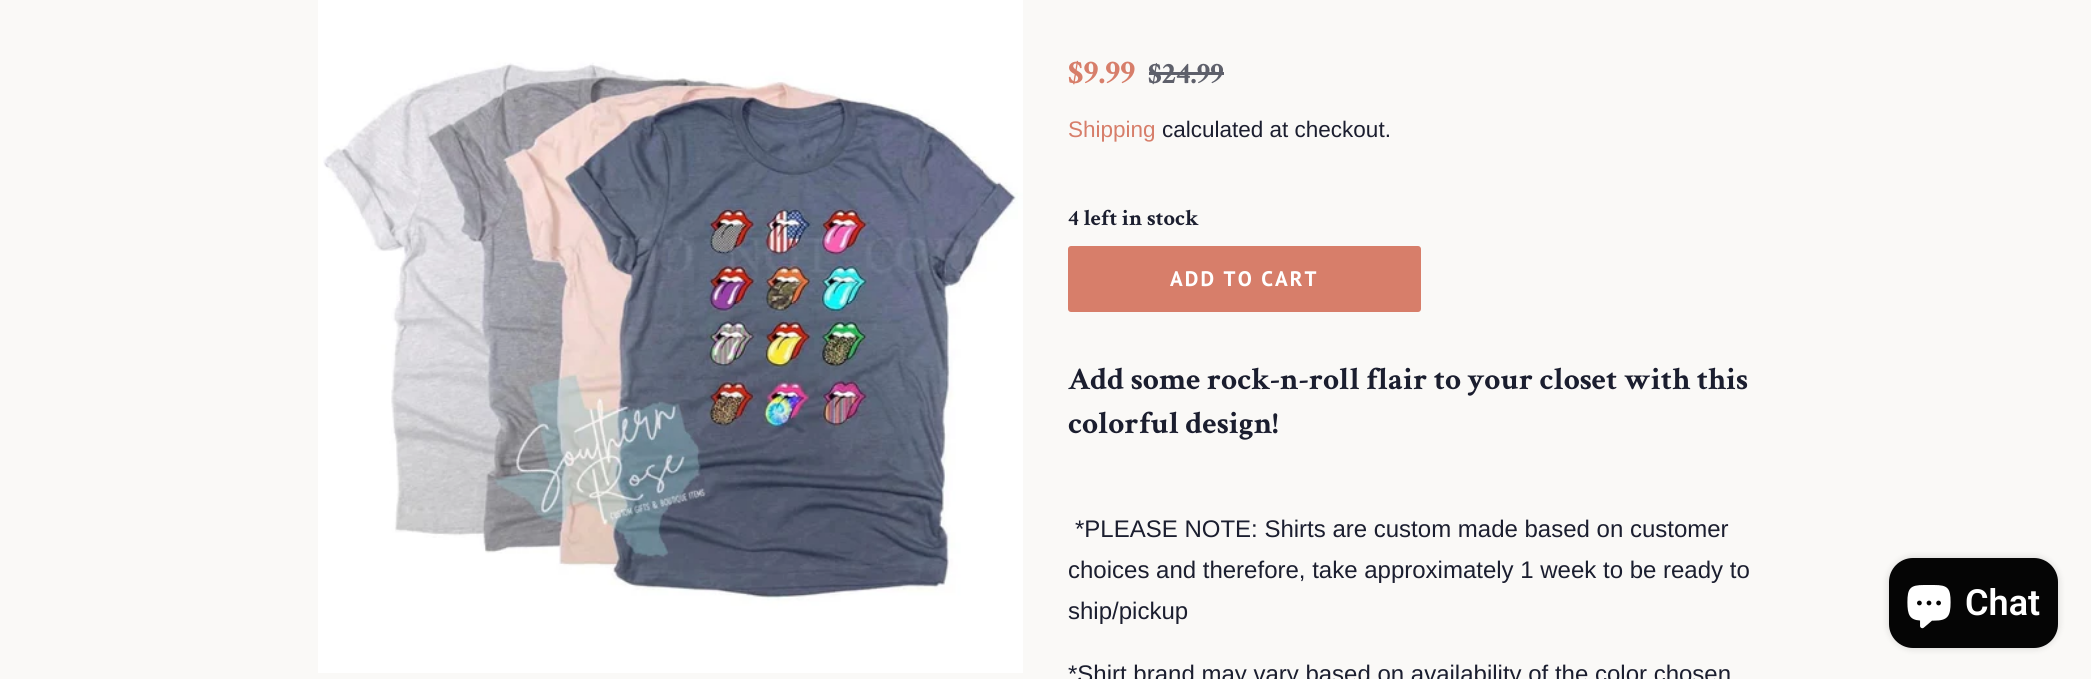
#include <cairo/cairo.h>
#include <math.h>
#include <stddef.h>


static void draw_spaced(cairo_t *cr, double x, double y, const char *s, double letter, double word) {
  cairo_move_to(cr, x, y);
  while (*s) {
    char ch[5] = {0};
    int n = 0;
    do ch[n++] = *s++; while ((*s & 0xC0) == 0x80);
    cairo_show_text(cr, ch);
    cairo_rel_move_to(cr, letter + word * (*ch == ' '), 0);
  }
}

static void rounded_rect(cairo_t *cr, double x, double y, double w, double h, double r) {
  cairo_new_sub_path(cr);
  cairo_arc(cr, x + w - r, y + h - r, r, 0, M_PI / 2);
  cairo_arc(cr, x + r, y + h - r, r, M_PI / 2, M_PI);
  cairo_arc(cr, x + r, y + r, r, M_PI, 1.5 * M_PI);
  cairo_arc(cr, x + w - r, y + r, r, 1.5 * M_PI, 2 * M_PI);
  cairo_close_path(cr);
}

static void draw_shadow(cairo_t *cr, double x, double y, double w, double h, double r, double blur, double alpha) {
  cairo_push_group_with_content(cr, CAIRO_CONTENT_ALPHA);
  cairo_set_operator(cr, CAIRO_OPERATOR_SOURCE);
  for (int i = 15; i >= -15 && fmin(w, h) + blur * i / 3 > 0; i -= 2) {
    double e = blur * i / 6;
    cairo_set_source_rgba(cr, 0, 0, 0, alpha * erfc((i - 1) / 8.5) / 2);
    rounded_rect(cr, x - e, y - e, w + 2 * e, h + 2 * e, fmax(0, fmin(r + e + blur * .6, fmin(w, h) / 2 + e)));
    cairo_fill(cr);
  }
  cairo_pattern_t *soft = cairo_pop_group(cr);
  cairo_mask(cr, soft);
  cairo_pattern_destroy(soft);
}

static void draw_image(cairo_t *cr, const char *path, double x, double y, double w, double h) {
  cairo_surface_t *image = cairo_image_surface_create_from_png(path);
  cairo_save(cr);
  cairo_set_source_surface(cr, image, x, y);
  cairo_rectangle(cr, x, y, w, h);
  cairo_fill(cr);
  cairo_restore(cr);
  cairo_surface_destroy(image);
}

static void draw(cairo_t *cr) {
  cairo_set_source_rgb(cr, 250 / 255.0, 249 / 255.0, 247 / 255.0);
  cairo_paint(cr);
  draw_image(cr, "images/1.png", 318, 0, 705, 673);
  cairo_set_source_rgb(cr, 94 / 255.0, 96 / 255.0, 107 / 255.0);
  cairo_rectangle(cr, 1149, 72, 75, 3);
  cairo_fill(cr);
  cairo_set_source_rgb(cr, 215 / 255.0, 126 / 255.0, 106 / 255.0);
  rounded_rect(cr, 1068, 246, 353, 66, 3);
  cairo_fill(cr);
  cairo_set_source_rgb(cr, 0, 0, 0);
  draw_shadow(cr, 1889, 558, 169, 90, 24, 4, 0.15);
  cairo_set_source_rgb(cr, 5 / 255.0, 5 / 255.0, 5 / 255.0);
  rounded_rect(cr, 1889, 558, 169, 90, 24);
  cairo_fill(cr);
  draw_image(cr, "images/2.png", 1907, 585, 44, 44);
  cairo_select_font_face(cr, "Crimson Text", CAIRO_FONT_SLANT_NORMAL, CAIRO_FONT_WEIGHT_BOLD);
  cairo_set_font_size(cr, 34);
  cairo_set_source_rgb(cr, 215 / 255.0, 126 / 255.0, 106 / 255.0);
  cairo_move_to(cr, 1068, 83);
  cairo_show_text(cr, "$9.99");
  cairo_set_font_size(cr, 30.5);
  cairo_set_source_rgb(cr, 94 / 255.0, 96 / 255.0, 107 / 255.0);
  cairo_move_to(cr, 1148, 83);
  cairo_show_text(cr, "$24.99");
  cairo_select_font_face(cr, "Liberation Sans", CAIRO_FONT_SLANT_NORMAL, CAIRO_FONT_WEIGHT_NORMAL);
  cairo_set_font_size(cr, 22.5);
  cairo_set_source_rgb(cr, 215 / 255.0, 126 / 255.0, 106 / 255.0);
  cairo_move_to(cr, 1068, 137);
  cairo_show_text(cr, "Shipping");
  cairo_set_source_rgb(cr, 27 / 255.0, 30 / 255.0, 47 / 255.0);
  cairo_move_to(cr, 1162, 137);
  cairo_show_text(cr, "calculated at checkout.");
  cairo_select_font_face(cr, "Crimson Text", CAIRO_FONT_SLANT_NORMAL, CAIRO_FONT_WEIGHT_BOLD);
  cairo_move_to(cr, 1068, 225);
  cairo_show_text(cr, "4 left in stock");
  cairo_select_font_face(cr, "PT Sans", CAIRO_FONT_SLANT_NORMAL, CAIRO_FONT_WEIGHT_BOLD);
  cairo_set_font_size(cr, 21);
  cairo_set_source_rgb(cr, 1, 1, 1);
  draw_spaced(cr, 1170, 286, "ADD TO CART", 2.1, 0);
  cairo_select_font_face(cr, "Crimson Text", CAIRO_FONT_SLANT_NORMAL, CAIRO_FONT_WEIGHT_BOLD);
  cairo_set_font_size(cr, 31.5);
  cairo_set_source_rgb(cr, 27 / 255.0, 30 / 255.0, 47 / 255.0);
  cairo_move_to(cr, 1068, 389);
  cairo_show_text(cr, "Add some rock-n-roll flair to your closet with this");
  cairo_move_to(cr, 1068, 433);
  cairo_show_text(cr, "colorful design!");
  cairo_select_font_face(cr, "Liberation Sans", CAIRO_FONT_SLANT_NORMAL, CAIRO_FONT_WEIGHT_NORMAL);
  cairo_set_font_size(cr, 24);
  cairo_move_to(cr, 1075, 537);
  cairo_show_text(cr, "*PLEASE NOTE: Shirts are custom made based on customer");
  cairo_move_to(cr, 1068, 578);
  cairo_show_text(cr, "choices and therefore, take approximately 1 week to be ready to");
  cairo_move_to(cr, 1068, 619);
  cairo_show_text(cr, "ship/pickup");
  cairo_move_to(cr, 1068, 682);
  cairo_show_text(cr, "*Shirt brand may vary based on availability of the color chosen");
  cairo_select_font_face(cr, "Roboto SemiBold", CAIRO_FONT_SLANT_NORMAL, CAIRO_FONT_WEIGHT_NORMAL);
  cairo_set_font_size(cr, 36);
  cairo_set_source_rgb(cr, 1, 1, 1);
  cairo_move_to(cr, 1965, 615);
  cairo_show_text(cr, "Chat");
}

int main(void) {
  cairo_surface_t *surface = cairo_image_surface_create(CAIRO_FORMAT_RGB24, 2091, 679);
  cairo_t *cr = cairo_create(surface);
  cairo_font_options_t *options = cairo_font_options_create();
  cairo_font_options_set_hint_metrics(options, CAIRO_HINT_METRICS_OFF);
  cairo_font_options_set_hint_style(options, CAIRO_HINT_STYLE_NONE);
  cairo_set_font_options(cr, options);
  cairo_set_miter_limit(cr, 4);
  draw(cr);
  cairo_surface_write_to_png(surface, "out.png");
  cairo_font_options_destroy(options);
  cairo_destroy(cr);
  cairo_surface_destroy(surface);
  return 0;
}
